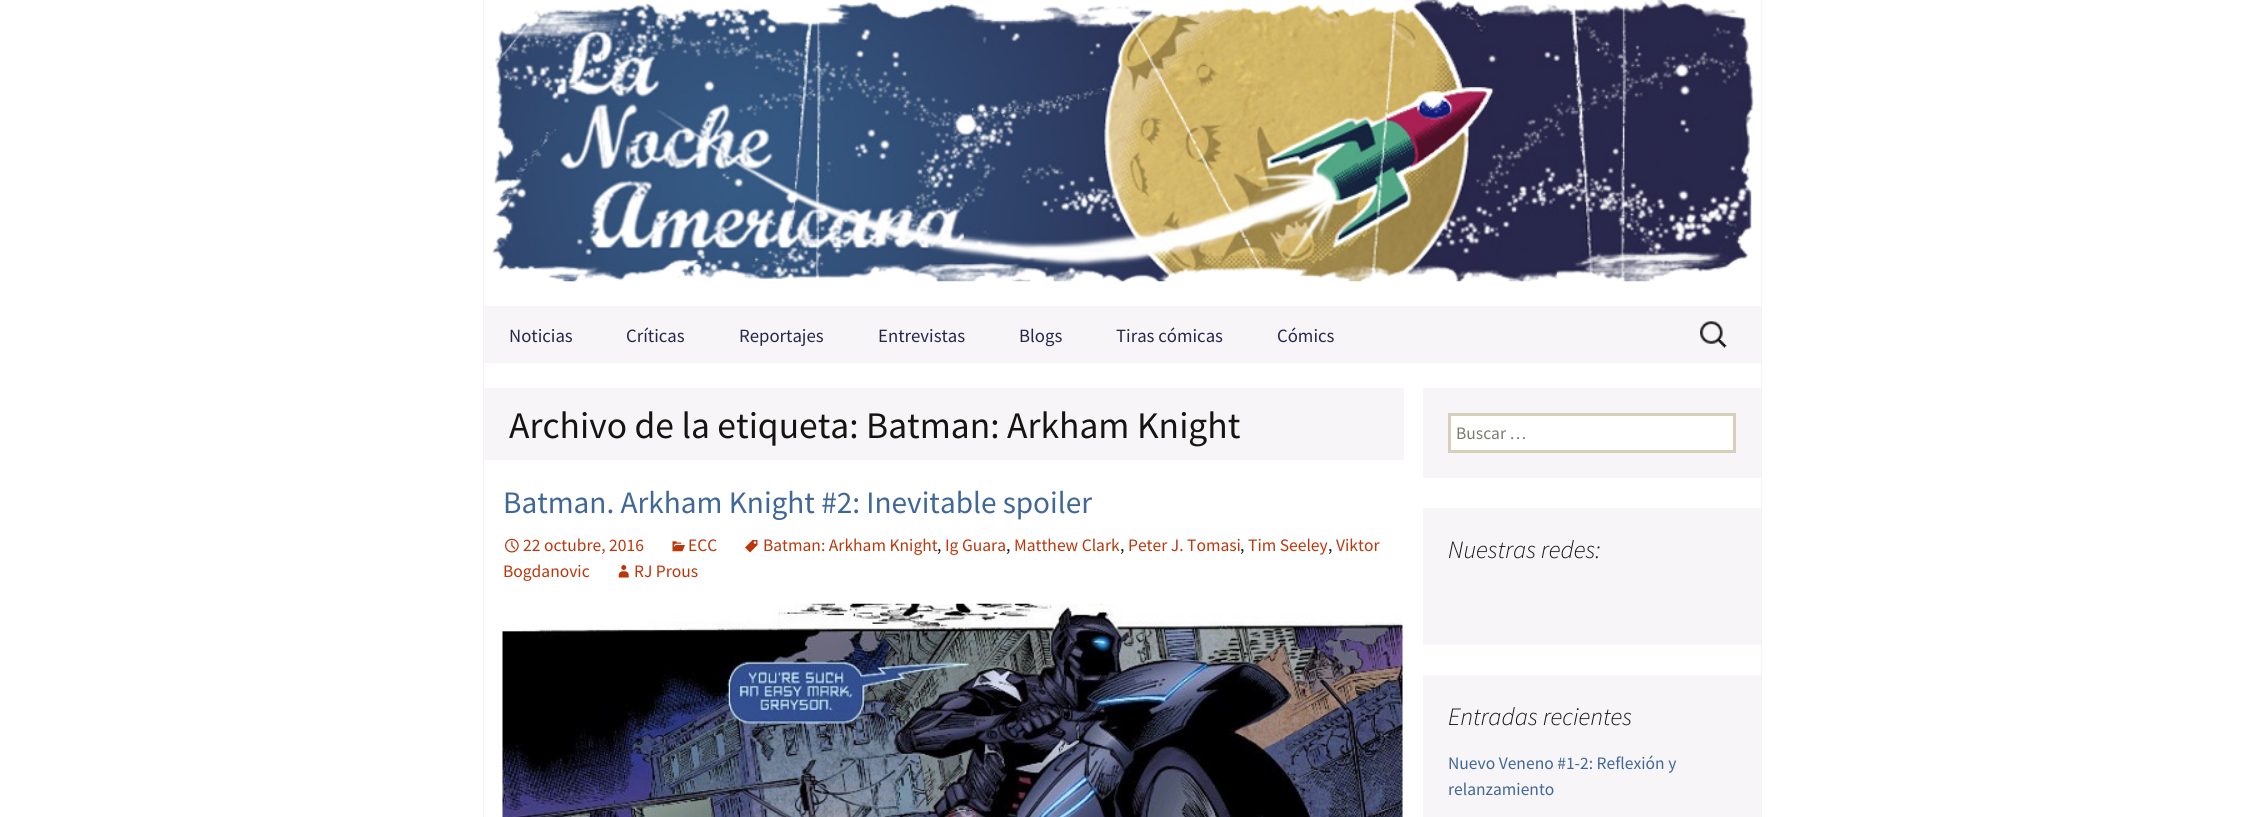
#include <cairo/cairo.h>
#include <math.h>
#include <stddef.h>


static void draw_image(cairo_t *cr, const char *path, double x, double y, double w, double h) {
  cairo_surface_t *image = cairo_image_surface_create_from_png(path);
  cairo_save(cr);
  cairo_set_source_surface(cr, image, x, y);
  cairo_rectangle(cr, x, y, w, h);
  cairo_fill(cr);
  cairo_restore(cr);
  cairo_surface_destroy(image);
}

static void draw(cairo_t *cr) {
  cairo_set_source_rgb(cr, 1, 1, 1);
  cairo_paint(cr);
  cairo_set_source_rgb(cr, 242 / 255.0, 242 / 255.0, 242 / 255.0);
  cairo_rectangle(cr, 1761, 0, 1, 817);
  cairo_fill(cr);
  cairo_rectangle(cr, 483, 0, 1, 817);
  cairo_fill(cr);
  draw_image(cr, "images/1.png", 490, 0, 1264, 282);
  cairo_set_source_rgb(cr, 247 / 255.0, 245 / 255.0, 247 / 255.0);
  cairo_rectangle(cr, 484, 306, 1277, 57);
  cairo_fill(cr);
  draw_image(cr, "images/2.png", 1700, 321, 27, 27);
  cairo_rectangle(cr, 484, 388, 920, 72);
  cairo_fill(cr);
  draw_image(cr, "images/3.png", 745, 540, 13, 13);
  draw_image(cr, "images/4.png", 505, 538, 14, 15);
  draw_image(cr, "images/5.png", 672, 541, 13, 11);
  draw_image(cr, "images/6.png", 618, 565, 11, 13);
  draw_image(cr, "images/7.png", 502, 603, 901, 214);
  cairo_rectangle(cr, 1423, 388, 338, 90);
  cairo_fill(cr);
  cairo_set_source_rgb(cr, 1, 1, 1);
  cairo_rectangle(cr, 1449.5, 414.5, 285, 37);
  cairo_fill_preserve(cr);
  cairo_set_source_rgb(cr, 212 / 255.0, 208 / 255.0, 186 / 255.0);
  cairo_set_line_width(cr, 3);
  cairo_stroke(cr);
  cairo_set_source_rgb(cr, 247 / 255.0, 245 / 255.0, 247 / 255.0);
  cairo_rectangle(cr, 1423, 508, 338, 137);
  cairo_fill(cr);
  cairo_rectangle(cr, 1423, 675, 338, 142);
  cairo_fill(cr);
  cairo_select_font_face(cr, "Source Sans Pro", CAIRO_FONT_SLANT_NORMAL, CAIRO_FONT_WEIGHT_NORMAL);
  cairo_set_font_size(cr, 18.75);
  cairo_set_source_rgb(cr, 39 / 255.0, 39 / 255.0, 75 / 255.0);
  cairo_move_to(cr, 509, 342);
  cairo_show_text(cr, "Noticias");
  cairo_move_to(cr, 626, 342);
  cairo_show_text(cr, "Críticas");
  cairo_move_to(cr, 739, 342);
  cairo_show_text(cr, "Reportajes");
  cairo_move_to(cr, 878, 342);
  cairo_show_text(cr, "Entrevistas");
  cairo_move_to(cr, 1019, 342);
  cairo_show_text(cr, "Blogs");
  cairo_move_to(cr, 1116, 342);
  cairo_show_text(cr, "Tiras cómicas");
  cairo_move_to(cr, 1277, 342);
  cairo_show_text(cr, "Cómics");
  cairo_set_font_size(cr, 37.5);
  cairo_set_source_rgb(cr, 20 / 255.0, 20 / 255.0, 18 / 255.0);
  cairo_move_to(cr, 509, 438);
  cairo_show_text(cr, "Archivo de la etiqueta: Batman: Arkham Knight");
  cairo_set_font_size(cr, 31.25);
  cairo_set_source_rgb(cr, 63 / 255.0, 103 / 255.0, 152 / 255.0);
  cairo_move_to(cr, 503, 513);
  cairo_show_text(cr, "Batman. Arkham Knight #2: Inevitable spoiler");
  cairo_set_font_size(cr, 17.5);
  cairo_set_source_rgb(cr, 188 / 255.0, 54 / 255.0, 10 / 255.0);
  cairo_move_to(cr, 763, 551);
  cairo_show_text(cr, "Batman: Arkham Knight");
  cairo_set_source_rgb(cr, 20 / 255.0, 20 / 255.0, 18 / 255.0);
  cairo_move_to(cr, 937, 551);
  cairo_show_text(cr, ",");
  cairo_set_source_rgb(cr, 188 / 255.0, 54 / 255.0, 10 / 255.0);
  cairo_move_to(cr, 945, 551);
  cairo_show_text(cr, "Ig Guara");
  cairo_set_source_rgb(cr, 20 / 255.0, 20 / 255.0, 18 / 255.0);
  cairo_move_to(cr, 1006, 551);
  cairo_show_text(cr, ",");
  cairo_set_source_rgb(cr, 188 / 255.0, 54 / 255.0, 10 / 255.0);
  cairo_move_to(cr, 1014, 551);
  cairo_show_text(cr, "Matthew Clark");
  cairo_set_source_rgb(cr, 20 / 255.0, 20 / 255.0, 18 / 255.0);
  cairo_move_to(cr, 1120, 551);
  cairo_show_text(cr, ",");
  cairo_set_source_rgb(cr, 188 / 255.0, 54 / 255.0, 10 / 255.0);
  cairo_move_to(cr, 1128, 551);
  cairo_show_text(cr, "Peter J. Tomasi");
  cairo_set_source_rgb(cr, 20 / 255.0, 20 / 255.0, 18 / 255.0);
  cairo_move_to(cr, 1240, 551);
  cairo_show_text(cr, ",");
  cairo_set_source_rgb(cr, 188 / 255.0, 54 / 255.0, 10 / 255.0);
  cairo_move_to(cr, 1248, 551);
  cairo_show_text(cr, "Tim Seeley");
  cairo_set_source_rgb(cr, 20 / 255.0, 20 / 255.0, 18 / 255.0);
  cairo_move_to(cr, 1328, 551);
  cairo_show_text(cr, ",");
  cairo_set_source_rgb(cr, 188 / 255.0, 54 / 255.0, 10 / 255.0);
  cairo_move_to(cr, 1336, 551);
  cairo_show_text(cr, "Viktor");
  cairo_move_to(cr, 503, 577);
  cairo_show_text(cr, "Bogdanovic");
  cairo_move_to(cr, 523, 551);
  cairo_show_text(cr, "22 octubre, 2016");
  cairo_move_to(cr, 688, 551);
  cairo_show_text(cr, "ECC");
  cairo_move_to(cr, 634, 577);
  cairo_show_text(cr, "RJ Prous");
  cairo_set_source_rgb(cr, 125 / 255.0, 123 / 255.0, 109 / 255.0);
  cairo_move_to(cr, 1456, 439);
  cairo_show_text(cr, "Buscar …");
  cairo_select_font_face(cr, "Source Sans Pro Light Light", CAIRO_FONT_SLANT_ITALIC, CAIRO_FONT_WEIGHT_NORMAL);
  cairo_set_font_size(cr, 25);
  cairo_set_source_rgb(cr, 20 / 255.0, 20 / 255.0, 18 / 255.0);
  cairo_move_to(cr, 1448, 558);
  cairo_show_text(cr, "Nuestras redes:");
  cairo_move_to(cr, 1448, 725);
  cairo_show_text(cr, "Entradas recientes");
  cairo_select_font_face(cr, "Source Sans Pro", CAIRO_FONT_SLANT_NORMAL, CAIRO_FONT_WEIGHT_NORMAL);
  cairo_set_font_size(cr, 17.5);
  cairo_set_source_rgb(cr, 63 / 255.0, 103 / 255.0, 152 / 255.0);
  cairo_move_to(cr, 1448, 769);
  cairo_show_text(cr, "Nuevo Veneno #1-2: Reflexión y");
  cairo_move_to(cr, 1448, 795);
  cairo_show_text(cr, "relanzamiento");
}

int main(void) {
  cairo_surface_t *surface = cairo_image_surface_create(CAIRO_FORMAT_RGB24, 2245, 817);
  cairo_t *cr = cairo_create(surface);
  cairo_font_options_t *options = cairo_font_options_create();
  cairo_font_options_set_hint_metrics(options, CAIRO_HINT_METRICS_OFF);
  cairo_font_options_set_hint_style(options, CAIRO_HINT_STYLE_NONE);
  cairo_set_font_options(cr, options);
  cairo_set_miter_limit(cr, 4);
  draw(cr);
  cairo_surface_write_to_png(surface, "out.png");
  cairo_font_options_destroy(options);
  cairo_destroy(cr);
  cairo_surface_destroy(surface);
  return 0;
}
